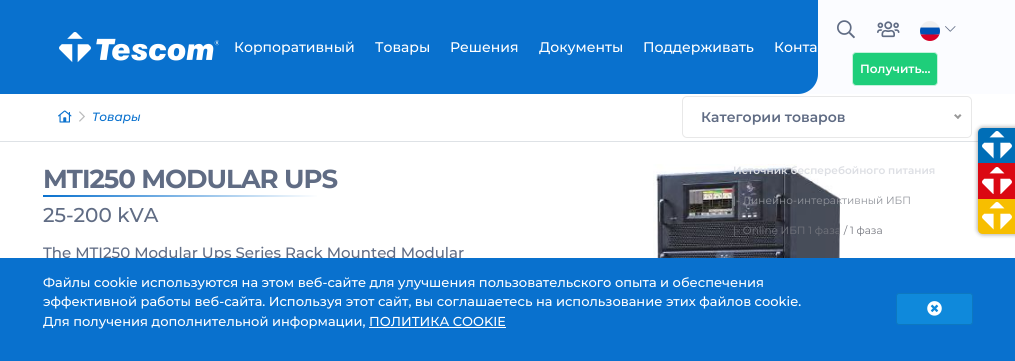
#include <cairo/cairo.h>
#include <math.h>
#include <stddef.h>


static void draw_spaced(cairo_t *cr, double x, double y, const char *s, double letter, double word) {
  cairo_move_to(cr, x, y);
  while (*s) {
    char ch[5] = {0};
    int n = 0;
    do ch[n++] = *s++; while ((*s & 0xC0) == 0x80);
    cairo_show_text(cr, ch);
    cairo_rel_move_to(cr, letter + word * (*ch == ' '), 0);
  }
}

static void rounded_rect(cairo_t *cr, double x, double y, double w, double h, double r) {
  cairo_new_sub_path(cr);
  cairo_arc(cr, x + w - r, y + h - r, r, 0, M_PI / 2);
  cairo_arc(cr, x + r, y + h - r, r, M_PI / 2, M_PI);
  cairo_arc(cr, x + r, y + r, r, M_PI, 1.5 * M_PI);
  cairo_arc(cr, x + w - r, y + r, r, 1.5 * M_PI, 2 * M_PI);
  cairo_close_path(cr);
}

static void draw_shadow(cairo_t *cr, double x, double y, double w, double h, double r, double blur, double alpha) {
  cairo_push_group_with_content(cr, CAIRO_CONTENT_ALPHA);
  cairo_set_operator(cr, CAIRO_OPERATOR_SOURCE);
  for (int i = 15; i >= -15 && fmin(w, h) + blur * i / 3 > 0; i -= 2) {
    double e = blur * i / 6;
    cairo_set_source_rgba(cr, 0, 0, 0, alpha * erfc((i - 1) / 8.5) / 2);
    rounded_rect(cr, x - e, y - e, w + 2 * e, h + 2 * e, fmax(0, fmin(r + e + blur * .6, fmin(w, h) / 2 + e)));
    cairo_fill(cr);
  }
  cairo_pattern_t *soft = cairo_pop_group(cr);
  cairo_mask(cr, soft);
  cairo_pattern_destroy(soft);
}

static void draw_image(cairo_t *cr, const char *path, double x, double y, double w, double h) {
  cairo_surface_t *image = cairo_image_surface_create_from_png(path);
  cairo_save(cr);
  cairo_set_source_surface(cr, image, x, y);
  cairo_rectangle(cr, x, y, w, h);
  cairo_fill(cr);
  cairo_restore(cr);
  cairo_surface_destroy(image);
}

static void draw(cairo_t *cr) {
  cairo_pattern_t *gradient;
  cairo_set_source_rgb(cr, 1, 1, 1);
  cairo_paint(cr);
  cairo_set_source_rgb(cr, 251 / 255.0, 252 / 255.0, 1);
  cairo_rectangle(cr, 798, 0, 217, 94);
  cairo_fill(cr);
  cairo_set_source_rgb(cr, 9 / 255.0, 113 / 255.0, 206 / 255.0);
  cairo_rectangle(cr, 0, 0, 43, 94);
  cairo_fill(cr);
  cairo_new_path(cr);
  cairo_move_to(cr, 43, 0);
  cairo_line_to(cr, 818, 0);
  cairo_line_to(cr, 818, 74);
  cairo_curve_to(cr, 818, 85, 809, 94, 798, 94);
  cairo_line_to(cr, 43, 94);
  cairo_close_path(cr);
  cairo_fill(cr);
  draw_image(cr, "images/1.png", 59, 32, 160, 31);
  draw_image(cr, "images/2.png", 837, 20, 18, 19);
  draw_image(cr, "images/3.png", 877, 21, 23, 17);
  draw_image(cr, "images/4.png", 920, 21, 20, 20);
  draw_image(cr, "images/5.png", 945, 26, 11, 6);
  cairo_set_source_rgb(cr, 30 / 255.0, 206 / 255.0, 122 / 255.0);
  rounded_rect(cr, 852.5, 52.5, 85, 33, 3.5);
  cairo_fill_preserve(cr);
  cairo_set_source_rgb(cr, 197 / 255.0, 242 / 255.0, 220 / 255.0);
  cairo_set_line_width(cr, 1);
  cairo_stroke(cr);
  cairo_set_source_rgb(cr, 222 / 255.0, 226 / 255.0, 230 / 255.0);
  cairo_rectangle(cr, 0, 141, 978, 1);
  cairo_fill(cr);
  draw_image(cr, "images/6.png", 58, 110, 14, 13);
  draw_image(cr, "images/7.png", 79, 111, 6, 11);
  rounded_rect(cr, 682.5, 96.5, 289, 41, 4.5);
  cairo_set_source_rgb(cr, 232 / 255.0, 232 / 255.0, 232 / 255.0);
  cairo_stroke(cr);
  cairo_set_source_rgb(cr, 153 / 255.0, 153 / 255.0, 153 / 255.0);
  cairo_new_path(cr);
  cairo_move_to(cr, 960, 114);
  cairo_line_to(cr, 961.5, 115.5);
  cairo_line_to(cr, 958, 119);
  cairo_line_to(cr, 956.5, 117.5);
  cairo_close_path(cr);
  cairo_fill(cr);
  cairo_new_path(cr);
  cairo_move_to(cr, 955.5, 114);
  cairo_line_to(cr, 959, 117.5);
  cairo_line_to(cr, 958, 119);
  cairo_line_to(cr, 954, 115.5);
  cairo_close_path(cr);
  cairo_fill(cr);
  cairo_set_source_rgb(cr, 0, 0, 0);
  draw_shadow(cr, 977, 127, 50, 108, 6, 2, 0.3);
  cairo_set_source_rgb(cr, 0, 110 / 255.0, 183 / 255.0);
  cairo_new_path(cr);
  cairo_move_to(cr, 983, 128);
  cairo_line_to(cr, 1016, 128);
  cairo_line_to(cr, 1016, 163);
  cairo_line_to(cr, 978, 163);
  cairo_line_to(cr, 978, 133);
  cairo_curve_to(cr, 978, 130, 980, 128, 983, 128);
  cairo_close_path(cr);
  cairo_fill(cr);
  draw_image(cr, "images/8.png", 982, 131, 30, 28);
  cairo_set_source_rgb(cr, 219 / 255.0, 8 / 255.0, 18 / 255.0);
  cairo_rectangle(cr, 978, 163, 37, 36);
  cairo_fill(cr);
  draw_image(cr, "images/9.png", 982, 167, 30, 27);
  cairo_set_source_rgb(cr, 247 / 255.0, 190 / 255.0, 0);
  cairo_new_path(cr);
  cairo_move_to(cr, 978, 199);
  cairo_line_to(cr, 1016, 199);
  cairo_line_to(cr, 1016, 234);
  cairo_line_to(cr, 983, 234);
  cairo_curve_to(cr, 980, 234, 978, 232, 978, 229);
  cairo_close_path(cr);
  cairo_fill(cr);
  draw_image(cr, "images/10.png", 982, 202, 30, 28);
  gradient = cairo_pattern_create_linear(43, 196, 337, 196);
  cairo_pattern_add_color_stop_rgba(gradient, 0, 9 / 255.0, 113 / 255.0, 206 / 255.0, 1);
  cairo_pattern_add_color_stop_rgba(gradient, 0.94, 1, 1, 1, 1);
  cairo_pattern_add_color_stop_rgba(gradient, 0.99, 1, 1, 1, 1);
  cairo_set_source(cr, gradient);
  cairo_pattern_destroy(gradient);
  cairo_rectangle(cr, 43, 195, 274, 2);
  cairo_fill(cr);
  draw_image(cr, "images/11.png", 653, 164, 187, 94);
  cairo_select_font_face(cr, "Montserrat Medium", CAIRO_FONT_SLANT_NORMAL, CAIRO_FONT_WEIGHT_NORMAL);
  cairo_set_font_size(cr, 14);
  cairo_set_source_rgb(cr, 1, 1, 1);
  cairo_move_to(cr, 234, 52);
  cairo_show_text(cr, "Корпоративный");
  cairo_move_to(cr, 375, 52);
  cairo_show_text(cr, "Товары");
  cairo_move_to(cr, 450, 52);
  cairo_show_text(cr, "Решения");
  cairo_move_to(cr, 539, 52);
  cairo_show_text(cr, "Документы");
  cairo_move_to(cr, 643, 52);
  cairo_show_text(cr, "Поддерживать");
  cairo_move_to(cr, 774, 52);
  cairo_show_text(cr, "Конта");
  cairo_select_font_face(cr, "Montserrat SemiBold", CAIRO_FONT_SLANT_NORMAL, CAIRO_FONT_WEIGHT_NORMAL);
  cairo_set_font_size(cr, 12);
  cairo_move_to(cr, 860, 73);
  cairo_show_text(cr, "Получить...");
  cairo_select_font_face(cr, "Montserrat Medium", CAIRO_FONT_SLANT_ITALIC, CAIRO_FONT_WEIGHT_NORMAL);
  cairo_set_source_rgb(cr, 9 / 255.0, 113 / 255.0, 206 / 255.0);
  cairo_move_to(cr, 92, 121);
  cairo_show_text(cr, "Товары");
  cairo_select_font_face(cr, "Montserrat SemiBold", CAIRO_FONT_SLANT_NORMAL, CAIRO_FONT_WEIGHT_NORMAL);
  cairo_set_font_size(cr, 14);
  cairo_set_source_rgb(cr, 96 / 255.0, 108 / 255.0, 132 / 255.0);
  cairo_move_to(cr, 701, 122);
  cairo_show_text(cr, "Категории товаров");
  cairo_set_font_size(cr, 10.5);
  cairo_set_source_rgb(cr, 221 / 255.0, 223 / 255.0, 228 / 255.0);
  cairo_move_to(cr, 733, 174);
  cairo_show_text(cr, "Источник бесперебойного питания");
  cairo_select_font_face(cr, "Montserrat", CAIRO_FONT_SLANT_NORMAL, CAIRO_FONT_WEIGHT_NORMAL);
  cairo_set_source_rgb(cr, 144 / 255.0, 147 / 255.0, 154 / 255.0);
  cairo_move_to(cr, 733, 204);
  cairo_show_text(cr, "|- Линейно-интерактивный ИБП");
  cairo_set_source_rgb(cr, 115 / 255.0, 117 / 255.0, 125 / 255.0);
  cairo_move_to(cr, 733, 234);
  cairo_show_text(cr, "|- Online ИБП 1 фаза / 1 фаза");
  cairo_select_font_face(cr, "Montserrat", CAIRO_FONT_SLANT_NORMAL, CAIRO_FONT_WEIGHT_BOLD);
  cairo_set_font_size(cr, 26);
  cairo_set_source_rgb(cr, 96 / 255.0, 108 / 255.0, 132 / 255.0);
  draw_spaced(cr, 43, 188, "MTI250 MODULAR UPS", -1, 0);
  cairo_select_font_face(cr, "Montserrat Medium", CAIRO_FONT_SLANT_NORMAL, CAIRO_FONT_WEIGHT_NORMAL);
  cairo_set_font_size(cr, 20);
  cairo_move_to(cr, 43, 222);
  cairo_show_text(cr, "25-200 kVA");
  cairo_set_font_size(cr, 15);
  cairo_move_to(cr, 43, 258);
  cairo_show_text(cr, "The MTI250 Modular Ups Series Rack Mounted Modular");
  cairo_set_source_rgb(cr, 9 / 255.0, 113 / 255.0, 206 / 255.0);
  cairo_rectangle(cr, 0, 258, 1015, 103);
  cairo_fill(cr);
  cairo_set_font_size(cr, 13);
  cairo_set_source_rgb(cr, 1, 1, 1);
  cairo_move_to(cr, 43, 287);
  cairo_show_text(cr, "Файлы cookie используются на этом веб-сайте для улучшения пользовательского опыта и обеспечения");
  cairo_move_to(cr, 43, 306);
  cairo_show_text(cr, "эффективной работы веб-сайта. Используя этот сайт, вы соглашаетесь на использование этих файлов cookie.");
  cairo_move_to(cr, 43, 326);
  cairo_show_text(cr, "Для получения дополнительной информации, ПОЛИТИКА COOKIE");
  cairo_rectangle(cr, 369, 327, 137, 1);
  cairo_fill(cr);
  cairo_set_source_rgb(cr, 15 / 255.0, 137 / 255.0, 219 / 255.0);
  rounded_rect(cr, 896.5, 293.5, 76, 31, 2.5);
  cairo_fill_preserve(cr);
  cairo_set_source_rgb(cr, 13 / 255.0, 120 / 255.0, 192 / 255.0);
  cairo_stroke(cr);
  draw_image(cr, "images/12.png", 927, 301, 15, 15);
}

int main(void) {
  cairo_surface_t *surface = cairo_image_surface_create(CAIRO_FORMAT_RGB24, 1015, 361);
  cairo_t *cr = cairo_create(surface);
  cairo_font_options_t *options = cairo_font_options_create();
  cairo_font_options_set_hint_metrics(options, CAIRO_HINT_METRICS_OFF);
  cairo_font_options_set_hint_style(options, CAIRO_HINT_STYLE_NONE);
  cairo_set_font_options(cr, options);
  cairo_set_miter_limit(cr, 4);
  draw(cr);
  cairo_surface_write_to_png(surface, "out.png");
  cairo_font_options_destroy(options);
  cairo_destroy(cr);
  cairo_surface_destroy(surface);
  return 0;
}
